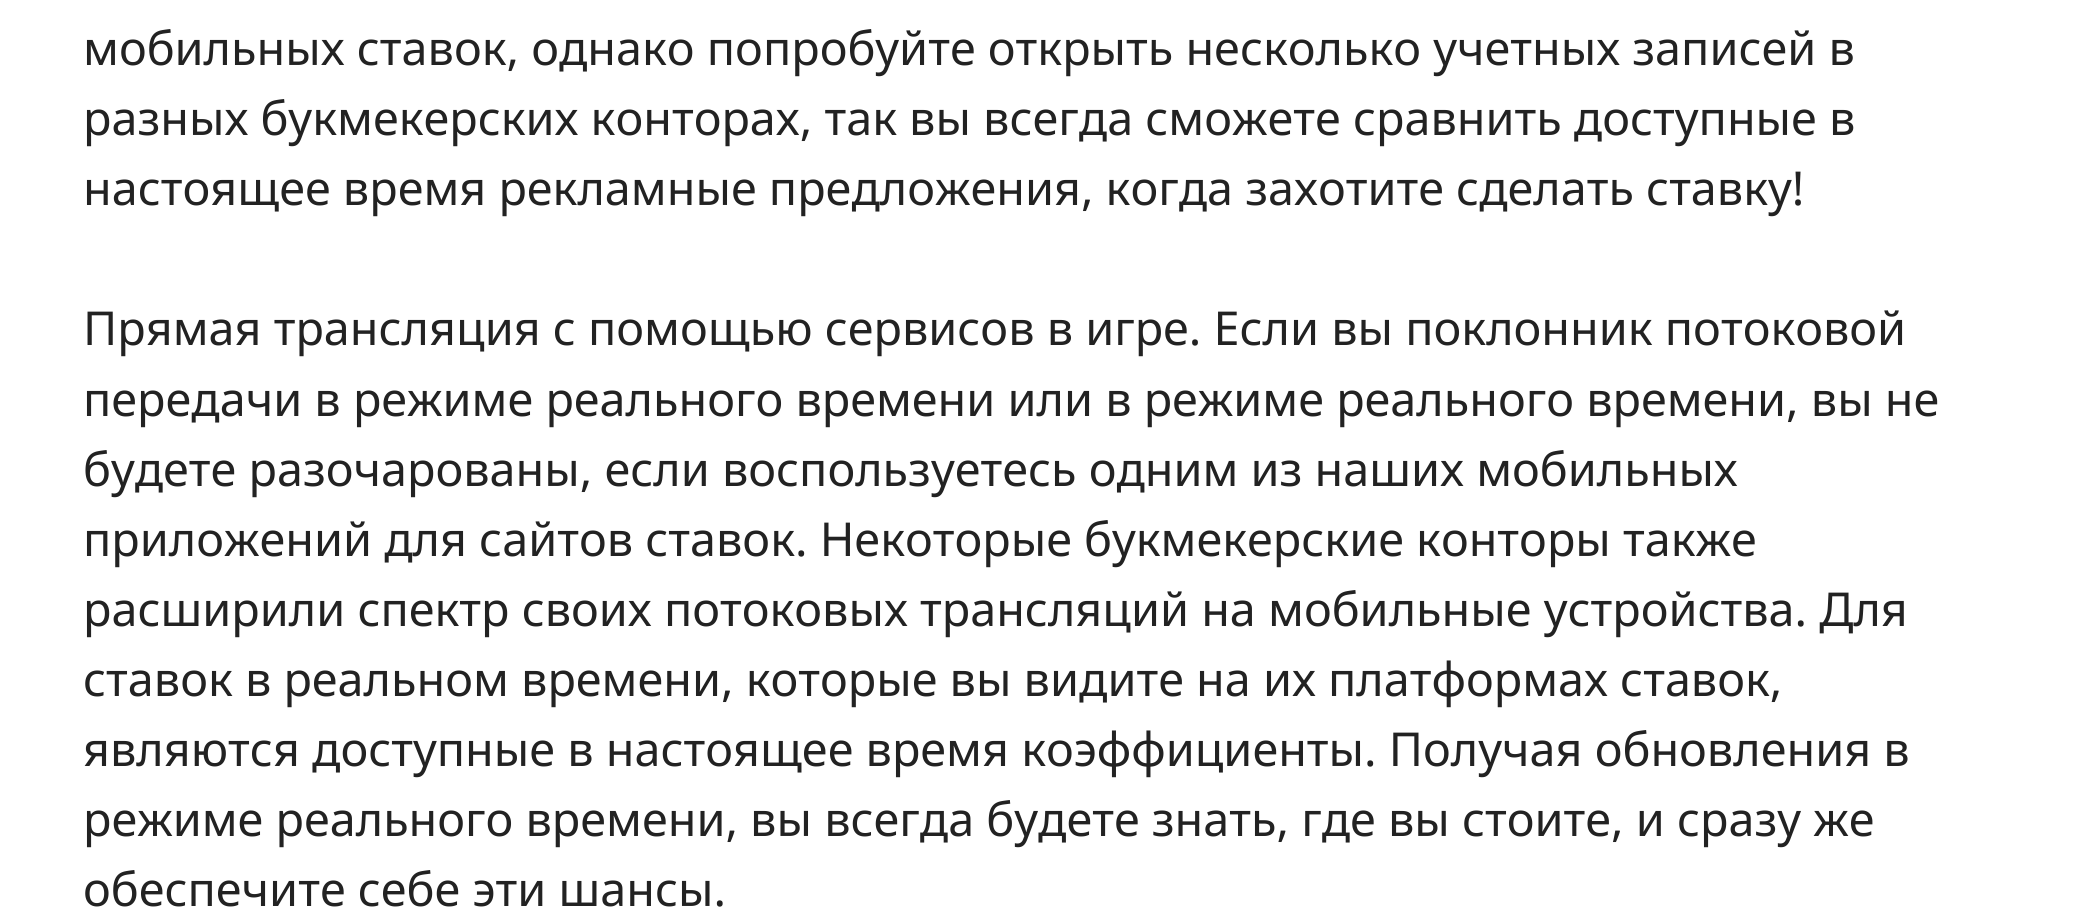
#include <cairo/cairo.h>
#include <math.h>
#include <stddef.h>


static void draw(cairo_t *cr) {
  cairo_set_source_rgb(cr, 1, 1, 1);
  cairo_paint(cr);
  cairo_select_font_face(cr, "Noto Sans", CAIRO_FONT_SLANT_NORMAL, CAIRO_FONT_WEIGHT_NORMAL);
  cairo_set_font_size(cr, 46.75);
  cairo_set_source_rgb(cr, 34 / 255.0, 34 / 255.0, 34 / 255.0);
  cairo_move_to(cr, 83, 65);
  cairo_show_text(cr, "мобильных ставок, однако попробуйте открыть несколько учетных записей в");
  cairo_move_to(cr, 83, 135);
  cairo_show_text(cr, "разных букмекерских конторах, так вы всегда сможете сравнить доступные в");
  cairo_move_to(cr, 83, 205);
  cairo_show_text(cr, "настоящее время рекламные предложения, когда захотите сделать ставку!");
  cairo_move_to(cr, 83, 345);
  cairo_show_text(cr, "Прямая трансляция с помощью сервисов в игре. Если вы поклонник потоковой");
  cairo_move_to(cr, 83, 416);
  cairo_show_text(cr, "передачи в режиме реального времени или в режиме реального времени, вы не");
  cairo_move_to(cr, 83, 486);
  cairo_show_text(cr, "будете разочарованы, если воспользуетесь одним из наших мобильных");
  cairo_move_to(cr, 83, 556);
  cairo_show_text(cr, "приложений для сайтов ставок. Некоторые букмекерские конторы также");
  cairo_move_to(cr, 83, 626);
  cairo_show_text(cr, "расширили спектр своих потоковых трансляций на мобильные устройства. Для");
  cairo_move_to(cr, 83, 696);
  cairo_show_text(cr, "ставок в реальном времени, которые вы видите на их платформах ставок,");
  cairo_move_to(cr, 83, 766);
  cairo_show_text(cr, "являются доступные в настоящее время коэффициенты. Получая обновления в");
  cairo_move_to(cr, 83, 836);
  cairo_show_text(cr, "режиме реального времени, вы всегда будете знать, где вы стоите, и сразу же");
  cairo_move_to(cr, 83, 906);
  cairo_show_text(cr, "обеспечите себе эти шансы.");
}

int main(void) {
  cairo_surface_t *surface = cairo_image_surface_create(CAIRO_FORMAT_RGB24, 2090, 909);
  cairo_t *cr = cairo_create(surface);
  cairo_font_options_t *options = cairo_font_options_create();
  cairo_font_options_set_hint_metrics(options, CAIRO_HINT_METRICS_OFF);
  cairo_font_options_set_hint_style(options, CAIRO_HINT_STYLE_NONE);
  cairo_set_font_options(cr, options);
  cairo_set_miter_limit(cr, 4);
  draw(cr);
  cairo_surface_write_to_png(surface, "out.png");
  cairo_font_options_destroy(options);
  cairo_destroy(cr);
  cairo_surface_destroy(surface);
  return 0;
}
